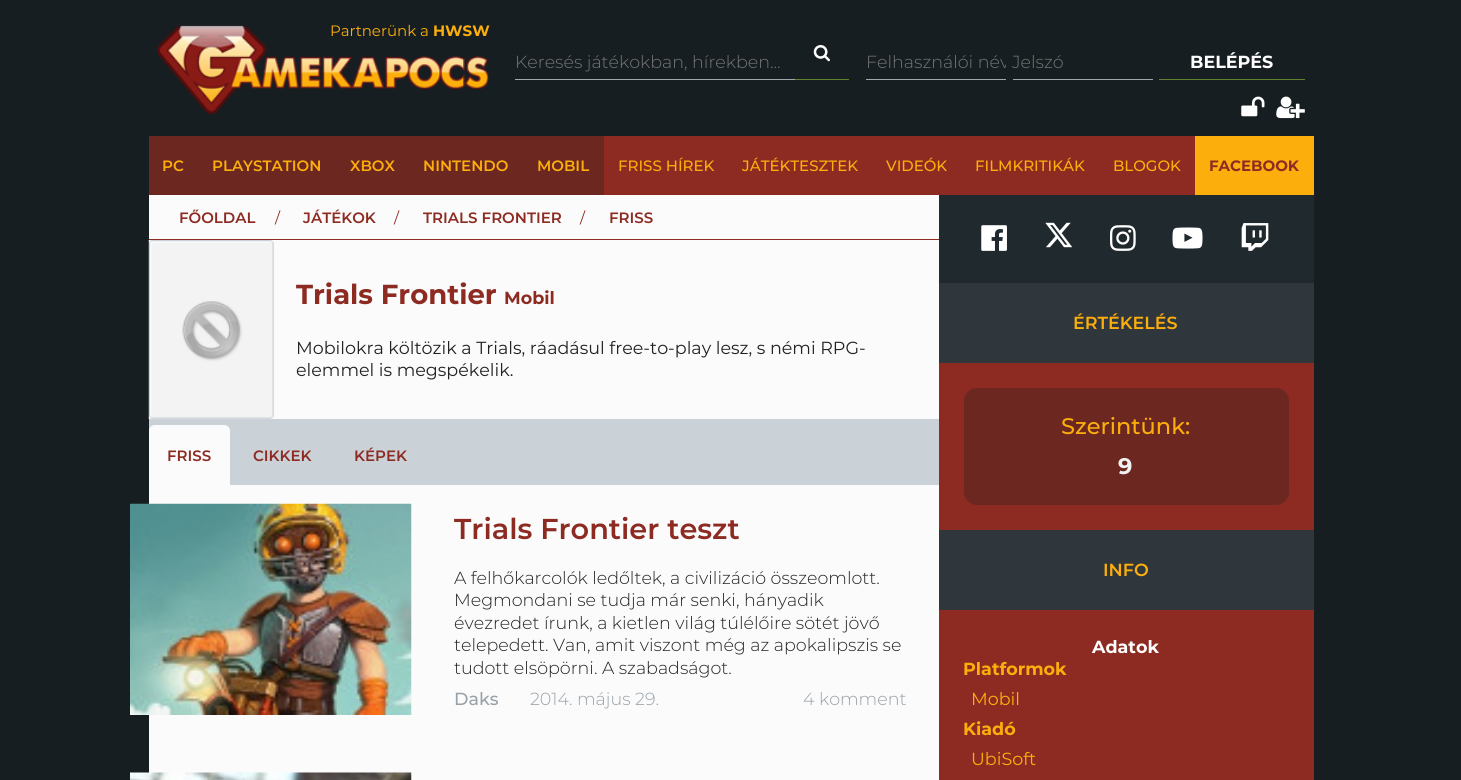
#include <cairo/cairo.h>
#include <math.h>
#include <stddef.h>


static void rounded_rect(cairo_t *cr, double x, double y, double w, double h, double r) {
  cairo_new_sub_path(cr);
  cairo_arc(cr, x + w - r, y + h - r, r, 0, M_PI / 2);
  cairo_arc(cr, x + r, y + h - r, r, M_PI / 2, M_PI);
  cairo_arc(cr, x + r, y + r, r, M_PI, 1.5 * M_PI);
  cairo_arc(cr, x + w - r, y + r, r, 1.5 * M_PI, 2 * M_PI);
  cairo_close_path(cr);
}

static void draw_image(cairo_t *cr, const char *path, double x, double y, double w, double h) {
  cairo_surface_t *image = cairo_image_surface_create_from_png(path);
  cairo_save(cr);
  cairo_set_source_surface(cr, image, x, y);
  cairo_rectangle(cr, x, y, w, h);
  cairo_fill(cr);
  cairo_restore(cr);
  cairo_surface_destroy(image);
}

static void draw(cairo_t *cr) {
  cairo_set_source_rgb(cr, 22 / 255.0, 30 / 255.0, 33 / 255.0);
  cairo_paint(cr);
  draw_image(cr, "images/1.png", 157, 25, 332, 89);
  cairo_set_source_rgb(cr, 164 / 255.0, 167 / 255.0, 169 / 255.0);
  cairo_rectangle(cr, 515, 79, 280, 1);
  cairo_fill(cr);
  cairo_set_source_rgb(cr, 98 / 255.0, 130 / 255.0, 48 / 255.0);
  cairo_rectangle(cr, 795, 79, 54, 1);
  cairo_fill(cr);
  draw_image(cr, "images/2.png", 813, 45, 17, 17);
  cairo_set_source_rgb(cr, 164 / 255.0, 167 / 255.0, 169 / 255.0);
  cairo_rectangle(cr, 866, 79, 140, 1);
  cairo_fill(cr);
  cairo_rectangle(cr, 1013, 79, 140, 1);
  cairo_fill(cr);
  cairo_set_source_rgb(cr, 98 / 255.0, 130 / 255.0, 48 / 255.0);
  cairo_rectangle(cr, 1159, 79, 146, 1);
  cairo_fill(cr);
  draw_image(cr, "images/3.png", 1241, 96, 24, 21);
  draw_image(cr, "images/4.png", 1276, 96, 29, 23);
  cairo_set_source_rgb(cr, 108 / 255.0, 39 / 255.0, 32 / 255.0);
  cairo_rectangle(cr, 149, 136, 455, 59);
  cairo_fill(cr);
  cairo_set_source_rgb(cr, 141 / 255.0, 43 / 255.0, 34 / 255.0);
  cairo_rectangle(cr, 604, 136, 591, 59);
  cairo_fill(cr);
  cairo_set_source_rgb(cr, 252 / 255.0, 174 / 255.0, 12 / 255.0);
  cairo_rectangle(cr, 1195, 136, 119, 59);
  cairo_fill(cr);
  cairo_set_source_rgb(cr, 251 / 255.0, 251 / 255.0, 251 / 255.0);
  cairo_rectangle(cr, 149, 195, 790, 585);
  cairo_fill(cr);
  cairo_set_source_rgb(cr, 142 / 255.0, 44 / 255.0, 35 / 255.0);
  cairo_rectangle(cr, 149, 239, 790, 1);
  cairo_fill(cr);
  draw_image(cr, "images/5.png", 148, 240, 126, 179);
  cairo_set_source_rgb(cr, 202 / 255.0, 209 / 255.0, 215 / 255.0);
  cairo_rectangle(cr, 149, 419, 790, 66);
  cairo_fill(cr);
  cairo_set_source_rgb(cr, 251 / 255.0, 251 / 255.0, 251 / 255.0);
  cairo_new_path(cr);
  cairo_move_to(cr, 155, 425);
  cairo_line_to(cr, 224, 425);
  cairo_curve_to(cr, 227.5, 425, 230, 427.5, 230, 431);
  cairo_line_to(cr, 230, 485);
  cairo_line_to(cr, 149, 485);
  cairo_line_to(cr, 149, 431);
  cairo_curve_to(cr, 149, 427.5, 151.5, 425, 155, 425);
  cairo_close_path(cr);
  cairo_fill(cr);
  draw_image(cr, "images/6.png", 130, 503, 282, 212);
  draw_image(cr, "images/7.png", 130, 772, 282, 8);
  cairo_set_source_rgb(cr, 32 / 255.0, 41 / 255.0, 46 / 255.0);
  cairo_rectangle(cr, 939, 195, 375, 88);
  cairo_fill(cr);
  draw_image(cr, "images/8.png", 981, 225, 26, 26);
  draw_image(cr, "images/9.png", 1045, 222, 28, 26);
  draw_image(cr, "images/10.png", 1110, 225, 26, 26);
  draw_image(cr, "images/11.png", 1172, 227, 31, 22);
  draw_image(cr, "images/12.png", 1241, 223, 28, 28);
  cairo_set_source_rgb(cr, 141 / 255.0, 43 / 255.0, 34 / 255.0);
  cairo_rectangle(cr, 939, 363, 375, 417);
  cairo_fill(cr);
  cairo_set_source_rgb(cr, 47 / 255.0, 54 / 255.0, 60 / 255.0);
  cairo_rectangle(cr, 939, 283, 375, 80);
  cairo_fill(cr);
  cairo_set_source_rgb(cr, 108 / 255.0, 39 / 255.0, 32 / 255.0);
  rounded_rect(cr, 964, 388, 325, 117, 13);
  cairo_fill(cr);
  cairo_set_source_rgb(cr, 47 / 255.0, 54 / 255.0, 60 / 255.0);
  cairo_rectangle(cr, 939, 530, 375, 80);
  cairo_fill(cr);
  cairo_select_font_face(cr, "Montserrat", CAIRO_FONT_SLANT_NORMAL, CAIRO_FONT_WEIGHT_NORMAL);
  cairo_set_font_size(cr, 15);
  cairo_set_source_rgb(cr, 252 / 255.0, 174 / 255.0, 12 / 255.0);
  cairo_move_to(cr, 330, 36);
  cairo_show_text(cr, "Partnerünk a");
  cairo_select_font_face(cr, "Montserrat", CAIRO_FONT_SLANT_NORMAL, CAIRO_FONT_WEIGHT_BOLD);
  cairo_move_to(cr, 433, 36);
  cairo_show_text(cr, "HWSW");
  cairo_select_font_face(cr, "Montserrat Light", CAIRO_FONT_SLANT_NORMAL, CAIRO_FONT_WEIGHT_NORMAL);
  cairo_set_font_size(cr, 17.5);
  cairo_set_source_rgb(cr, 117 / 255.0, 117 / 255.0, 117 / 255.0);
  cairo_move_to(cr, 515, 68);
  cairo_show_text(cr, "Keresés játékokban, hírekben...");
  cairo_save(cr);
  cairo_rectangle(cr, 866, 50, 140, 23);
  cairo_clip(cr);
  cairo_move_to(cr, 866, 68);
  cairo_show_text(cr, "Felhasználói név");
  cairo_restore(cr);
  cairo_move_to(cr, 1012, 68);
  cairo_show_text(cr, "Jelszó");
  cairo_select_font_face(cr, "Montserrat", CAIRO_FONT_SLANT_NORMAL, CAIRO_FONT_WEIGHT_BOLD);
  cairo_set_source_rgb(cr, 254 / 255.0, 254 / 255.0, 254 / 255.0);
  cairo_move_to(cr, 1190, 68);
  cairo_show_text(cr, "BELÉPÉS");
  cairo_select_font_face(cr, "Montserrat SemiBold", CAIRO_FONT_SLANT_NORMAL, CAIRO_FONT_WEIGHT_NORMAL);
  cairo_set_font_size(cr, 15);
  cairo_set_source_rgb(cr, 252 / 255.0, 174 / 255.0, 12 / 255.0);
  cairo_move_to(cr, 162, 171);
  cairo_show_text(cr, "PC");
  cairo_move_to(cr, 212, 171);
  cairo_show_text(cr, "PLAYSTATION");
  cairo_move_to(cr, 350, 171);
  cairo_show_text(cr, "XBOX");
  cairo_move_to(cr, 423, 171);
  cairo_show_text(cr, "NINTENDO");
  cairo_move_to(cr, 537, 171);
  cairo_show_text(cr, "MOBIL");
  cairo_select_font_face(cr, "Montserrat Medium", CAIRO_FONT_SLANT_NORMAL, CAIRO_FONT_WEIGHT_NORMAL);
  cairo_move_to(cr, 618, 171);
  cairo_show_text(cr, "FRISS HÍREK");
  cairo_move_to(cr, 742, 171);
  cairo_show_text(cr, "JÁTÉKTESZTEK");
  cairo_move_to(cr, 886, 171);
  cairo_show_text(cr, "VIDEÓK");
  cairo_move_to(cr, 975, 171);
  cairo_show_text(cr, "FILMKRITIKÁK");
  cairo_move_to(cr, 1113, 171);
  cairo_show_text(cr, "BLOGOK");
  cairo_select_font_face(cr, "Montserrat", CAIRO_FONT_SLANT_NORMAL, CAIRO_FONT_WEIGHT_BOLD);
  cairo_set_source_rgb(cr, 141 / 255.0, 43 / 255.0, 34 / 255.0);
  cairo_move_to(cr, 1209, 171);
  cairo_show_text(cr, "FACEBOOK");
  cairo_select_font_face(cr, "Montserrat SemiBold", CAIRO_FONT_SLANT_NORMAL, CAIRO_FONT_WEIGHT_NORMAL);
  cairo_move_to(cr, 179, 223);
  cairo_show_text(cr, "FŐOLDAL");
  cairo_select_font_face(cr, "Montserrat", CAIRO_FONT_SLANT_NORMAL, CAIRO_FONT_WEIGHT_NORMAL);
  cairo_move_to(cr, 275, 223);
  cairo_show_text(cr, "/");
  cairo_select_font_face(cr, "Montserrat SemiBold", CAIRO_FONT_SLANT_NORMAL, CAIRO_FONT_WEIGHT_NORMAL);
  cairo_move_to(cr, 303, 223);
  cairo_show_text(cr, "JÁTÉKOK");
  cairo_select_font_face(cr, "Montserrat", CAIRO_FONT_SLANT_NORMAL, CAIRO_FONT_WEIGHT_NORMAL);
  cairo_move_to(cr, 394, 223);
  cairo_show_text(cr, "/");
  cairo_select_font_face(cr, "Montserrat SemiBold", CAIRO_FONT_SLANT_NORMAL, CAIRO_FONT_WEIGHT_NORMAL);
  cairo_move_to(cr, 423, 223);
  cairo_show_text(cr, "TRIALS FRONTIER");
  cairo_select_font_face(cr, "Montserrat", CAIRO_FONT_SLANT_NORMAL, CAIRO_FONT_WEIGHT_NORMAL);
  cairo_move_to(cr, 580, 223);
  cairo_show_text(cr, "/");
  cairo_select_font_face(cr, "Montserrat SemiBold", CAIRO_FONT_SLANT_NORMAL, CAIRO_FONT_WEIGHT_NORMAL);
  cairo_move_to(cr, 609, 223);
  cairo_show_text(cr, "FRISS");
  cairo_select_font_face(cr, "Montserrat", CAIRO_FONT_SLANT_NORMAL, CAIRO_FONT_WEIGHT_BOLD);
  cairo_set_font_size(cr, 27.5);
  cairo_move_to(cr, 296, 304);
  cairo_show_text(cr, "Trials Frontier");
  cairo_set_font_size(cr, 17.5);
  cairo_move_to(cr, 504, 304);
  cairo_show_text(cr, "Mobil");
  cairo_select_font_face(cr, "Montserrat", CAIRO_FONT_SLANT_NORMAL, CAIRO_FONT_WEIGHT_NORMAL);
  cairo_set_source_rgb(cr, 34 / 255.0, 34 / 255.0, 34 / 255.0);
  cairo_move_to(cr, 296, 354);
  cairo_show_text(cr, "Mobilokra költözik a Trials, ráadásul free-to-play lesz, s némi RPG-");
  cairo_move_to(cr, 296, 376);
  cairo_show_text(cr, "elemmel is megspékelik.");
  cairo_select_font_face(cr, "Montserrat SemiBold", CAIRO_FONT_SLANT_NORMAL, CAIRO_FONT_WEIGHT_NORMAL);
  cairo_set_font_size(cr, 15);
  cairo_set_source_rgb(cr, 141 / 255.0, 43 / 255.0, 34 / 255.0);
  cairo_move_to(cr, 167, 461);
  cairo_show_text(cr, "FRISS");
  cairo_move_to(cr, 253, 461);
  cairo_show_text(cr, "CIKKEK");
  cairo_move_to(cr, 354, 461);
  cairo_show_text(cr, "KÉPEK");
  cairo_set_font_size(cr, 28.75);
  cairo_move_to(cr, 454, 539);
  cairo_show_text(cr, "Trials Frontier teszt");
  cairo_select_font_face(cr, "Montserrat Light", CAIRO_FONT_SLANT_NORMAL, CAIRO_FONT_WEIGHT_NORMAL);
  cairo_set_font_size(cr, 17.5);
  cairo_set_source_rgb(cr, 34 / 255.0, 34 / 255.0, 34 / 255.0);
  cairo_move_to(cr, 454, 584);
  cairo_show_text(cr, "A felhőkarcolók ledőltek, a civilizáció összeomlott.");
  cairo_move_to(cr, 454, 606);
  cairo_show_text(cr, "Megmondani se tudja már senki, hányadik");
  cairo_move_to(cr, 454, 629);
  cairo_show_text(cr, "évezredet írunk, a kietlen világ túlélőire sötét jövő");
  cairo_move_to(cr, 454, 651);
  cairo_show_text(cr, "telepedett. Van, amit viszont még az apokalipszis se");
  cairo_move_to(cr, 454, 674);
  cairo_show_text(cr, "tudott elsöpörni. A szabadságot.");
  cairo_select_font_face(cr, "Montserrat Medium", CAIRO_FONT_SLANT_NORMAL, CAIRO_FONT_WEIGHT_NORMAL);
  cairo_set_source_rgb(cr, 152 / 255.0, 161 / 255.0, 168 / 255.0);
  cairo_move_to(cr, 454, 705);
  cairo_show_text(cr, "Daks");
  cairo_select_font_face(cr, "Montserrat Light", CAIRO_FONT_SLANT_NORMAL, CAIRO_FONT_WEIGHT_NORMAL);
  cairo_move_to(cr, 530, 705);
  cairo_show_text(cr, "2014. május 29.");
  cairo_move_to(cr, 803, 705);
  cairo_show_text(cr, "4 komment");
  cairo_select_font_face(cr, "Montserrat SemiBold", CAIRO_FONT_SLANT_NORMAL, CAIRO_FONT_WEIGHT_NORMAL);
  cairo_set_source_rgb(cr, 252 / 255.0, 174 / 255.0, 12 / 255.0);
  cairo_move_to(cr, 1073, 329);
  cairo_show_text(cr, "ÉRTÉKELÉS");
  cairo_select_font_face(cr, "Montserrat Medium", CAIRO_FONT_SLANT_NORMAL, CAIRO_FONT_WEIGHT_NORMAL);
  cairo_set_font_size(cr, 22.5);
  cairo_move_to(cr, 1061, 434);
  cairo_show_text(cr, "Szerintünk:");
  cairo_select_font_face(cr, "Montserrat", CAIRO_FONT_SLANT_NORMAL, CAIRO_FONT_WEIGHT_BOLD);
  cairo_set_source_rgb(cr, 241 / 255.0, 241 / 255.0, 241 / 255.0);
  cairo_move_to(cr, 1118, 474);
  cairo_show_text(cr, "9");
  cairo_select_font_face(cr, "Montserrat SemiBold", CAIRO_FONT_SLANT_NORMAL, CAIRO_FONT_WEIGHT_NORMAL);
  cairo_set_font_size(cr, 17.5);
  cairo_set_source_rgb(cr, 252 / 255.0, 174 / 255.0, 12 / 255.0);
  cairo_move_to(cr, 1103, 576);
  cairo_show_text(cr, "INFO");
  cairo_select_font_face(cr, "Montserrat", CAIRO_FONT_SLANT_NORMAL, CAIRO_FONT_WEIGHT_BOLD);
  cairo_set_source_rgb(cr, 254 / 255.0, 254 / 255.0, 254 / 255.0);
  cairo_move_to(cr, 1092, 653);
  cairo_show_text(cr, "Adatok");
  cairo_set_source_rgb(cr, 252 / 255.0, 174 / 255.0, 12 / 255.0);
  cairo_move_to(cr, 963, 675);
  cairo_show_text(cr, "Platformok");
  cairo_select_font_face(cr, "Montserrat", CAIRO_FONT_SLANT_NORMAL, CAIRO_FONT_WEIGHT_NORMAL);
  cairo_move_to(cr, 971, 705);
  cairo_show_text(cr, "Mobil");
  cairo_select_font_face(cr, "Montserrat", CAIRO_FONT_SLANT_NORMAL, CAIRO_FONT_WEIGHT_BOLD);
  cairo_move_to(cr, 963, 735);
  cairo_show_text(cr, "Kiadó");
  cairo_select_font_face(cr, "Montserrat", CAIRO_FONT_SLANT_NORMAL, CAIRO_FONT_WEIGHT_NORMAL);
  cairo_move_to(cr, 971, 765);
  cairo_show_text(cr, "UbiSoft");
}

int main(void) {
  cairo_surface_t *surface = cairo_image_surface_create(CAIRO_FORMAT_RGB24, 1461, 780);
  cairo_t *cr = cairo_create(surface);
  cairo_font_options_t *options = cairo_font_options_create();
  cairo_font_options_set_hint_metrics(options, CAIRO_HINT_METRICS_OFF);
  cairo_font_options_set_hint_style(options, CAIRO_HINT_STYLE_NONE);
  cairo_set_font_options(cr, options);
  cairo_set_miter_limit(cr, 4);
  draw(cr);
  cairo_surface_write_to_png(surface, "out.png");
  cairo_font_options_destroy(options);
  cairo_destroy(cr);
  cairo_surface_destroy(surface);
  return 0;
}
